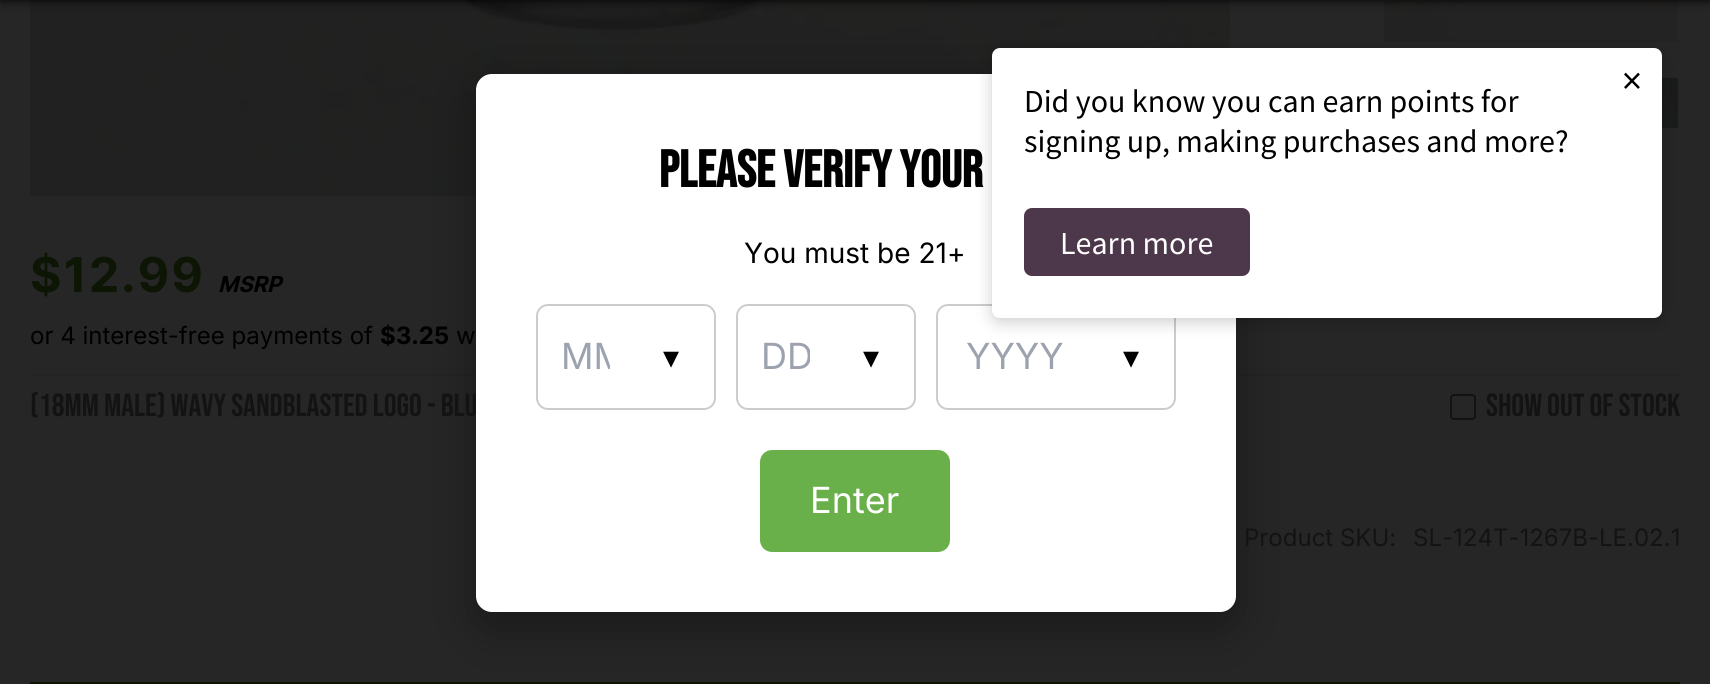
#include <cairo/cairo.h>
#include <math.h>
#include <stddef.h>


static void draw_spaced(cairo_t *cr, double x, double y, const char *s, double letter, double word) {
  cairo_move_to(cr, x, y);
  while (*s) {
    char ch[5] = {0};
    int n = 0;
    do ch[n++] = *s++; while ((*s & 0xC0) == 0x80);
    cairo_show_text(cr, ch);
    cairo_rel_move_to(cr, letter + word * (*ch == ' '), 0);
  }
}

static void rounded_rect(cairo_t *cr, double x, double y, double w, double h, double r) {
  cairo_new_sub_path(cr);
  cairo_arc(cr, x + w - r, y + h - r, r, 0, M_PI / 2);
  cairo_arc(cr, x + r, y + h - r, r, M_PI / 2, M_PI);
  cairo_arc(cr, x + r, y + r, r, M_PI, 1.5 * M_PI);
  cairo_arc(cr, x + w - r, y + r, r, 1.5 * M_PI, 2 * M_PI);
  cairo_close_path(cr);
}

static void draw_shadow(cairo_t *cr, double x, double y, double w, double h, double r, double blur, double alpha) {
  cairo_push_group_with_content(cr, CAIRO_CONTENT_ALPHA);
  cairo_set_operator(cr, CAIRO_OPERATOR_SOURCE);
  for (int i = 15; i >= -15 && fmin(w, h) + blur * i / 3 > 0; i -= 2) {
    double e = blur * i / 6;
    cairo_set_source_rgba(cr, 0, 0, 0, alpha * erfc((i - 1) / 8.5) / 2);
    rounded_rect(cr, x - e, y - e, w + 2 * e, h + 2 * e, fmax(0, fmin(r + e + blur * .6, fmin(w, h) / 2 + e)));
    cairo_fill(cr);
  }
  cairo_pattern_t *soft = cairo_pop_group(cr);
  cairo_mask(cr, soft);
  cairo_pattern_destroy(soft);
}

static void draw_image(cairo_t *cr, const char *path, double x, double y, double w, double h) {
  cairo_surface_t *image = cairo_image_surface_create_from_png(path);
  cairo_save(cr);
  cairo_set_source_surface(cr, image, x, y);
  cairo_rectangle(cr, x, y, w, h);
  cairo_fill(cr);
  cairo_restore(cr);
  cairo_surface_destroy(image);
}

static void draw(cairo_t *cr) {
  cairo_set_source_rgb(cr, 38 / 255.0, 38 / 255.0, 38 / 255.0);
  cairo_paint(cr);
  draw_image(cr, "images/1.png", 30, 0, 1200, 196);
  cairo_set_source_rgb(cr, 34 / 255.0, 35 / 255.0, 35 / 255.0);
  cairo_rectangle(cr, 30, 374, 1650, 2);
  cairo_fill(cr);
  cairo_set_source_rgb(cr, 13 / 255.0, 22 / 255.0, 5 / 255.0);
  cairo_rectangle(cr, 30, 682, 1650, 2);
  cairo_fill(cr);
  cairo_set_source_rgb(cr, 0, 0, 0);
  draw_shadow(cr, 476, 90, 760, 538, 16, 25, 0.35);
  draw_image(cr, "images/2.png", 1384, 0, 294, 42);
  draw_shadow(cr, 0, -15, 1710, 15, 0, 5, 1);
  draw_image(cr, "images/3.png", 1662, 78, 16, 50);
  rounded_rect(cr, 1451, 395, 24, 24, 3);
  cairo_set_source_rgb(cr, 18 / 255.0, 18 / 255.0, 18 / 255.0);
  cairo_stroke(cr);
  cairo_select_font_face(cr, "Inter", CAIRO_FONT_SLANT_NORMAL, CAIRO_FONT_WEIGHT_BOLD);
  cairo_set_font_size(cr, 48);
  cairo_set_source_rgb(cr, 13 / 255.0, 22 / 255.0, 5 / 255.0);
  draw_spaced(cr, 30, 292, "$12.99", 2, 0);
  cairo_select_font_face(cr, "Inter", CAIRO_FONT_SLANT_ITALIC, CAIRO_FONT_WEIGHT_BOLD);
  cairo_set_font_size(cr, 22);
  cairo_set_source_rgb(cr, 0, 0, 0);
  cairo_move_to(cr, 218, 292);
  cairo_show_text(cr, "MSRP");
  cairo_select_font_face(cr, "Inter", CAIRO_FONT_SLANT_NORMAL, CAIRO_FONT_WEIGHT_NORMAL);
  cairo_set_font_size(cr, 24);
  cairo_move_to(cr, 30, 344);
  cairo_show_text(cr, "or 4 interest-free payments of");
  cairo_select_font_face(cr, "Inter", CAIRO_FONT_SLANT_NORMAL, CAIRO_FONT_WEIGHT_BOLD);
  cairo_move_to(cr, 380, 344);
  cairo_show_text(cr, "$3.25");
  cairo_select_font_face(cr, "Inter", CAIRO_FONT_SLANT_NORMAL, CAIRO_FONT_WEIGHT_NORMAL);
  cairo_move_to(cr, 456, 344);
  cairo_show_text(cr, "w");
  cairo_select_font_face(cr, "Bebas Neue", CAIRO_FONT_SLANT_NORMAL, CAIRO_FONT_WEIGHT_NORMAL);
  cairo_set_font_size(cr, 32);
  cairo_set_source_rgb(cr, 19 / 255.0, 19 / 255.0, 19 / 255.0);
  cairo_move_to(cr, 30, 416);
  cairo_show_text(cr, "(18MM Male) Wavy Sandblasted Logo - Blu");
  cairo_set_source_rgb(cr, 1, 1, 1);
  rounded_rect(cr, 476, 74, 760, 538, 16);
  cairo_fill(cr);
  rounded_rect(cr, 937, 305, 238, 104, 11);
  cairo_set_source_rgb(cr, 204 / 255.0, 204 / 255.0, 204 / 255.0);
  cairo_stroke(cr);
  cairo_set_source_rgb(cr, 0, 0, 0);
  draw_shadow(cr, 992, 52, 670, 270, 8, 8, 0.2);
  cairo_set_source_rgb(cr, 1, 1, 1);
  rounded_rect(cr, 992, 48, 670, 270, 8);
  cairo_fill(cr);
  cairo_select_font_face(cr, "Source Sans Pro", CAIRO_FONT_SLANT_NORMAL, CAIRO_FONT_WEIGHT_NORMAL);
  cairo_set_font_size(cr, 40);
  cairo_set_source_rgb(cr, 0, 0, 0);
  cairo_move_to(cr, 1622, 94);
  cairo_show_text(cr, "×");
  cairo_set_source_rgb(cr, 77 / 255.0, 56 / 255.0, 75 / 255.0);
  rounded_rect(cr, 1024, 208, 226, 68, 8);
  cairo_fill(cr);
  cairo_set_font_size(cr, 32);
  cairo_set_source_rgb(cr, 1, 1, 1);
  cairo_move_to(cr, 1060, 254);
  cairo_show_text(cr, "Learn more");
  cairo_set_source_rgb(cr, 0, 0, 0);
  cairo_move_to(cr, 1024, 152);
  cairo_show_text(cr, "signing up, making purchases and more?");
  cairo_move_to(cr, 1024, 112);
  cairo_show_text(cr, "Did you know you can earn points for");
  cairo_select_font_face(cr, "DejaVu Sans", CAIRO_FONT_SLANT_NORMAL, CAIRO_FONT_WEIGHT_NORMAL);
  cairo_move_to(cr, 1123, 368);
  cairo_show_text(cr, "▾");
  rounded_rect(cr, 737, 305, 178, 104, 11);
  cairo_set_source_rgb(cr, 204 / 255.0, 204 / 255.0, 204 / 255.0);
  cairo_stroke(cr);
  cairo_set_source_rgb(cr, 0, 0, 0);
  cairo_move_to(cr, 863, 368);
  cairo_show_text(cr, "▾");
  rounded_rect(cr, 537, 305, 178, 104, 11);
  cairo_set_source_rgb(cr, 204 / 255.0, 204 / 255.0, 204 / 255.0);
  cairo_stroke(cr);
  cairo_set_source_rgb(cr, 0, 0, 0);
  cairo_move_to(cr, 663, 368);
  cairo_show_text(cr, "▾");
  cairo_select_font_face(cr, "Inter", CAIRO_FONT_SLANT_NORMAL, CAIRO_FONT_WEIGHT_NORMAL);
  cairo_set_font_size(cr, 36);
  cairo_set_source_rgb(cr, 156 / 255.0, 163 / 255.0, 175 / 255.0);
  cairo_move_to(cr, 966, 369);
  cairo_show_text(cr, "YYYY");
  cairo_save(cr);
  cairo_rectangle(cr, 762, 336, 48, 42);
  cairo_clip(cr);
  cairo_move_to(cr, 761, 369);
  cairo_show_text(cr, "DD");
  cairo_restore(cr);
  cairo_save(cr);
  cairo_rectangle(cr, 562, 336, 48, 42);
  cairo_clip(cr);
  cairo_move_to(cr, 561, 369);
  cairo_show_text(cr, "MM");
  cairo_restore(cr);
  cairo_set_source_rgb(cr, 106 / 255.0, 176 / 255.0, 74 / 255.0);
  rounded_rect(cr, 760, 450, 190, 102, 12);
  cairo_fill(cr);
  cairo_set_source_rgb(cr, 1, 1, 1);
  cairo_move_to(cr, 810, 513);
  cairo_show_text(cr, "Enter");
  cairo_set_font_size(cr, 28);
  cairo_set_source_rgb(cr, 0, 0, 0);
  cairo_move_to(cr, 744, 263);
  cairo_show_text(cr, "You must be 21+");
  cairo_select_font_face(cr, "Bebas Neue", CAIRO_FONT_SLANT_NORMAL, CAIRO_FONT_WEIGHT_BOLD);
  cairo_set_font_size(cr, 52);
  cairo_move_to(cr, 659, 187);
  cairo_show_text(cr, "Please verify your");
  cairo_select_font_face(cr, "Bebas Neue", CAIRO_FONT_SLANT_NORMAL, CAIRO_FONT_WEIGHT_NORMAL);
  cairo_set_font_size(cr, 32);
  cairo_set_source_rgb(cr, 19 / 255.0, 19 / 255.0, 19 / 255.0);
  cairo_move_to(cr, 1486, 416);
  cairo_show_text(cr, "Show out of stock");
  cairo_select_font_face(cr, "Inter", CAIRO_FONT_SLANT_NORMAL, CAIRO_FONT_WEIGHT_NORMAL);
  cairo_set_font_size(cr, 24);
  cairo_move_to(cr, 1244, 546);
  cairo_show_text(cr, "Product SKU:");
  cairo_move_to(cr, 1413, 546);
  cairo_show_text(cr, "SL-124T-1267B-LE.02.1");
}

int main(void) {
  cairo_surface_t *surface = cairo_image_surface_create(CAIRO_FORMAT_RGB24, 1710, 684);
  cairo_t *cr = cairo_create(surface);
  cairo_font_options_t *options = cairo_font_options_create();
  cairo_font_options_set_hint_metrics(options, CAIRO_HINT_METRICS_OFF);
  cairo_font_options_set_hint_style(options, CAIRO_HINT_STYLE_NONE);
  cairo_set_font_options(cr, options);
  cairo_set_miter_limit(cr, 4);
  draw(cr);
  cairo_surface_write_to_png(surface, "out.png");
  cairo_font_options_destroy(options);
  cairo_destroy(cr);
  cairo_surface_destroy(surface);
  return 0;
}
